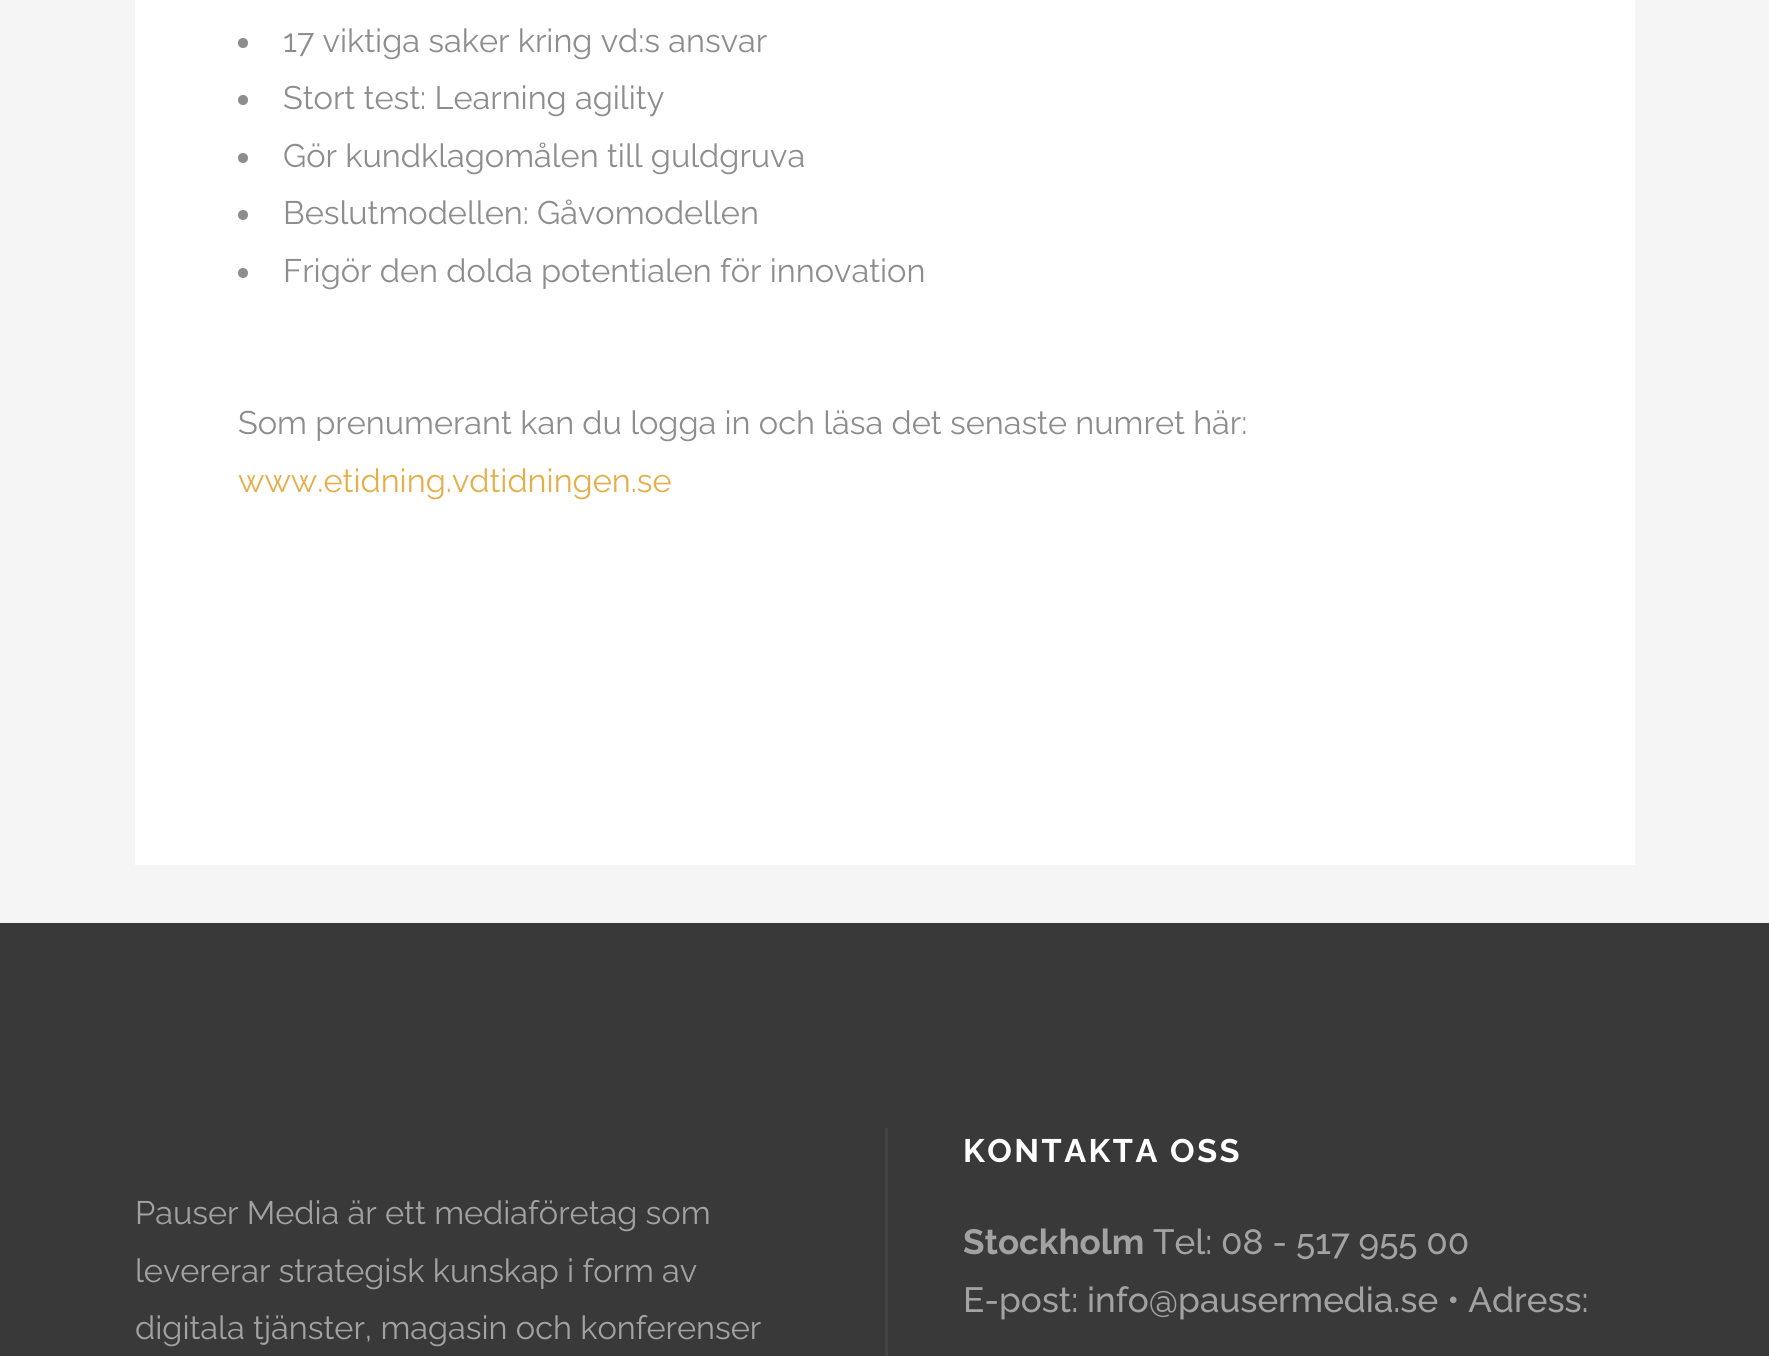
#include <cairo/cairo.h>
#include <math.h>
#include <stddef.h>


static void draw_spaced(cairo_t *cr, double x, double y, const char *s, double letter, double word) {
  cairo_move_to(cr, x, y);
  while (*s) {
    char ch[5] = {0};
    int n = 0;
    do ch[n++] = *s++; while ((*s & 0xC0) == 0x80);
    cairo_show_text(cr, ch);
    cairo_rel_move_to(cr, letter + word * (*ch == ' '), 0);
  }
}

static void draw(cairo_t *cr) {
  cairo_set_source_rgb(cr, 245 / 255.0, 245 / 255.0, 245 / 255.0);
  cairo_paint(cr);
  cairo_set_source_rgb(cr, 1, 1, 1);
  cairo_rectangle(cr, 135, 0, 1500, 865);
  cairo_fill(cr);
  cairo_set_source_rgb(cr, 141 / 255.0, 141 / 255.0, 141 / 255.0);
  cairo_arc(cr, 243, 43, 5, 0, 2 * M_PI);
  cairo_fill(cr);
  cairo_arc(cr, 243, 100, 5, 0, 2 * M_PI);
  cairo_fill(cr);
  cairo_arc(cr, 243, 158, 5, 0, 2 * M_PI);
  cairo_fill(cr);
  cairo_arc(cr, 243, 215, 5, 0, 2 * M_PI);
  cairo_fill(cr);
  cairo_arc(cr, 243, 273, 5, 0, 2 * M_PI);
  cairo_fill(cr);
  cairo_set_source_rgb(cr, 57 / 255.0, 57 / 255.0, 57 / 255.0);
  cairo_rectangle(cr, 0, 923, 1769, 433);
  cairo_fill(cr);
  cairo_set_source_rgb(cr, 68 / 255.0, 68 / 255.0, 68 / 255.0);
  cairo_rectangle(cr, 885, 1128, 3, 228);
  cairo_fill(cr);
  cairo_select_font_face(cr, "Raleway", CAIRO_FONT_SLANT_NORMAL, CAIRO_FONT_WEIGHT_NORMAL);
  cairo_set_font_size(cr, 32.5);
  cairo_set_source_rgb(cr, 141 / 255.0, 141 / 255.0, 141 / 255.0);
  cairo_move_to(cr, 283, 52);
  cairo_show_text(cr, "17 viktiga saker kring vd:s ansvar");
  cairo_move_to(cr, 283, 109);
  cairo_show_text(cr, "Stort test: Learning agility");
  cairo_move_to(cr, 283, 167);
  cairo_show_text(cr, "Gör kundklagomålen till guldgruva");
  cairo_move_to(cr, 283, 224);
  cairo_show_text(cr, "Beslutmodellen: Gåvomodellen");
  cairo_move_to(cr, 283, 282);
  cairo_show_text(cr, "Frigör den dolda potentialen för innovation");
  cairo_move_to(cr, 238, 434);
  cairo_show_text(cr, "Som prenumerant kan du logga in och läsa det senaste numret här:");
  cairo_set_source_rgb(cr, 230 / 255.0, 174 / 255.0, 72 / 255.0);
  cairo_move_to(cr, 238, 492);
  cairo_show_text(cr, "www.etidning.vdtidningen.se");
  cairo_set_source_rgb(cr, 162 / 255.0, 162 / 255.0, 162 / 255.0);
  cairo_move_to(cr, 135, 1224);
  cairo_show_text(cr, "Pauser Media är ett mediaföretag som");
  cairo_move_to(cr, 135, 1282);
  cairo_show_text(cr, "levererar strategisk kunskap i form av");
  cairo_move_to(cr, 135, 1339);
  cairo_show_text(cr, "digitala tjänster, magasin och konferenser");
  cairo_select_font_face(cr, "Raleway", CAIRO_FONT_SLANT_NORMAL, CAIRO_FONT_WEIGHT_BOLD);
  cairo_set_source_rgb(cr, 1, 1, 1);
  draw_spaced(cr, 963, 1162, "KONTAKTA OSS", 2.5, 0);
  cairo_set_font_size(cr, 35);
  cairo_set_source_rgb(cr, 162 / 255.0, 162 / 255.0, 162 / 255.0);
  cairo_move_to(cr, 963, 1254);
  cairo_show_text(cr, "Stockholm");
  cairo_select_font_face(cr, "Raleway Medium", CAIRO_FONT_SLANT_NORMAL, CAIRO_FONT_WEIGHT_NORMAL);
  cairo_move_to(cr, 1153, 1254);
  cairo_show_text(cr, "Tel: 08 - 517 955 00");
  cairo_move_to(cr, 963, 1312);
  cairo_show_text(cr, "E-post: info@pausermedia.se • Adress:");
}

int main(void) {
  cairo_surface_t *surface = cairo_image_surface_create(CAIRO_FORMAT_RGB24, 1769, 1356);
  cairo_t *cr = cairo_create(surface);
  cairo_font_options_t *options = cairo_font_options_create();
  cairo_font_options_set_hint_metrics(options, CAIRO_HINT_METRICS_OFF);
  cairo_font_options_set_hint_style(options, CAIRO_HINT_STYLE_NONE);
  cairo_set_font_options(cr, options);
  cairo_set_miter_limit(cr, 4);
  draw(cr);
  cairo_surface_write_to_png(surface, "out.png");
  cairo_font_options_destroy(options);
  cairo_destroy(cr);
  cairo_surface_destroy(surface);
  return 0;
}
